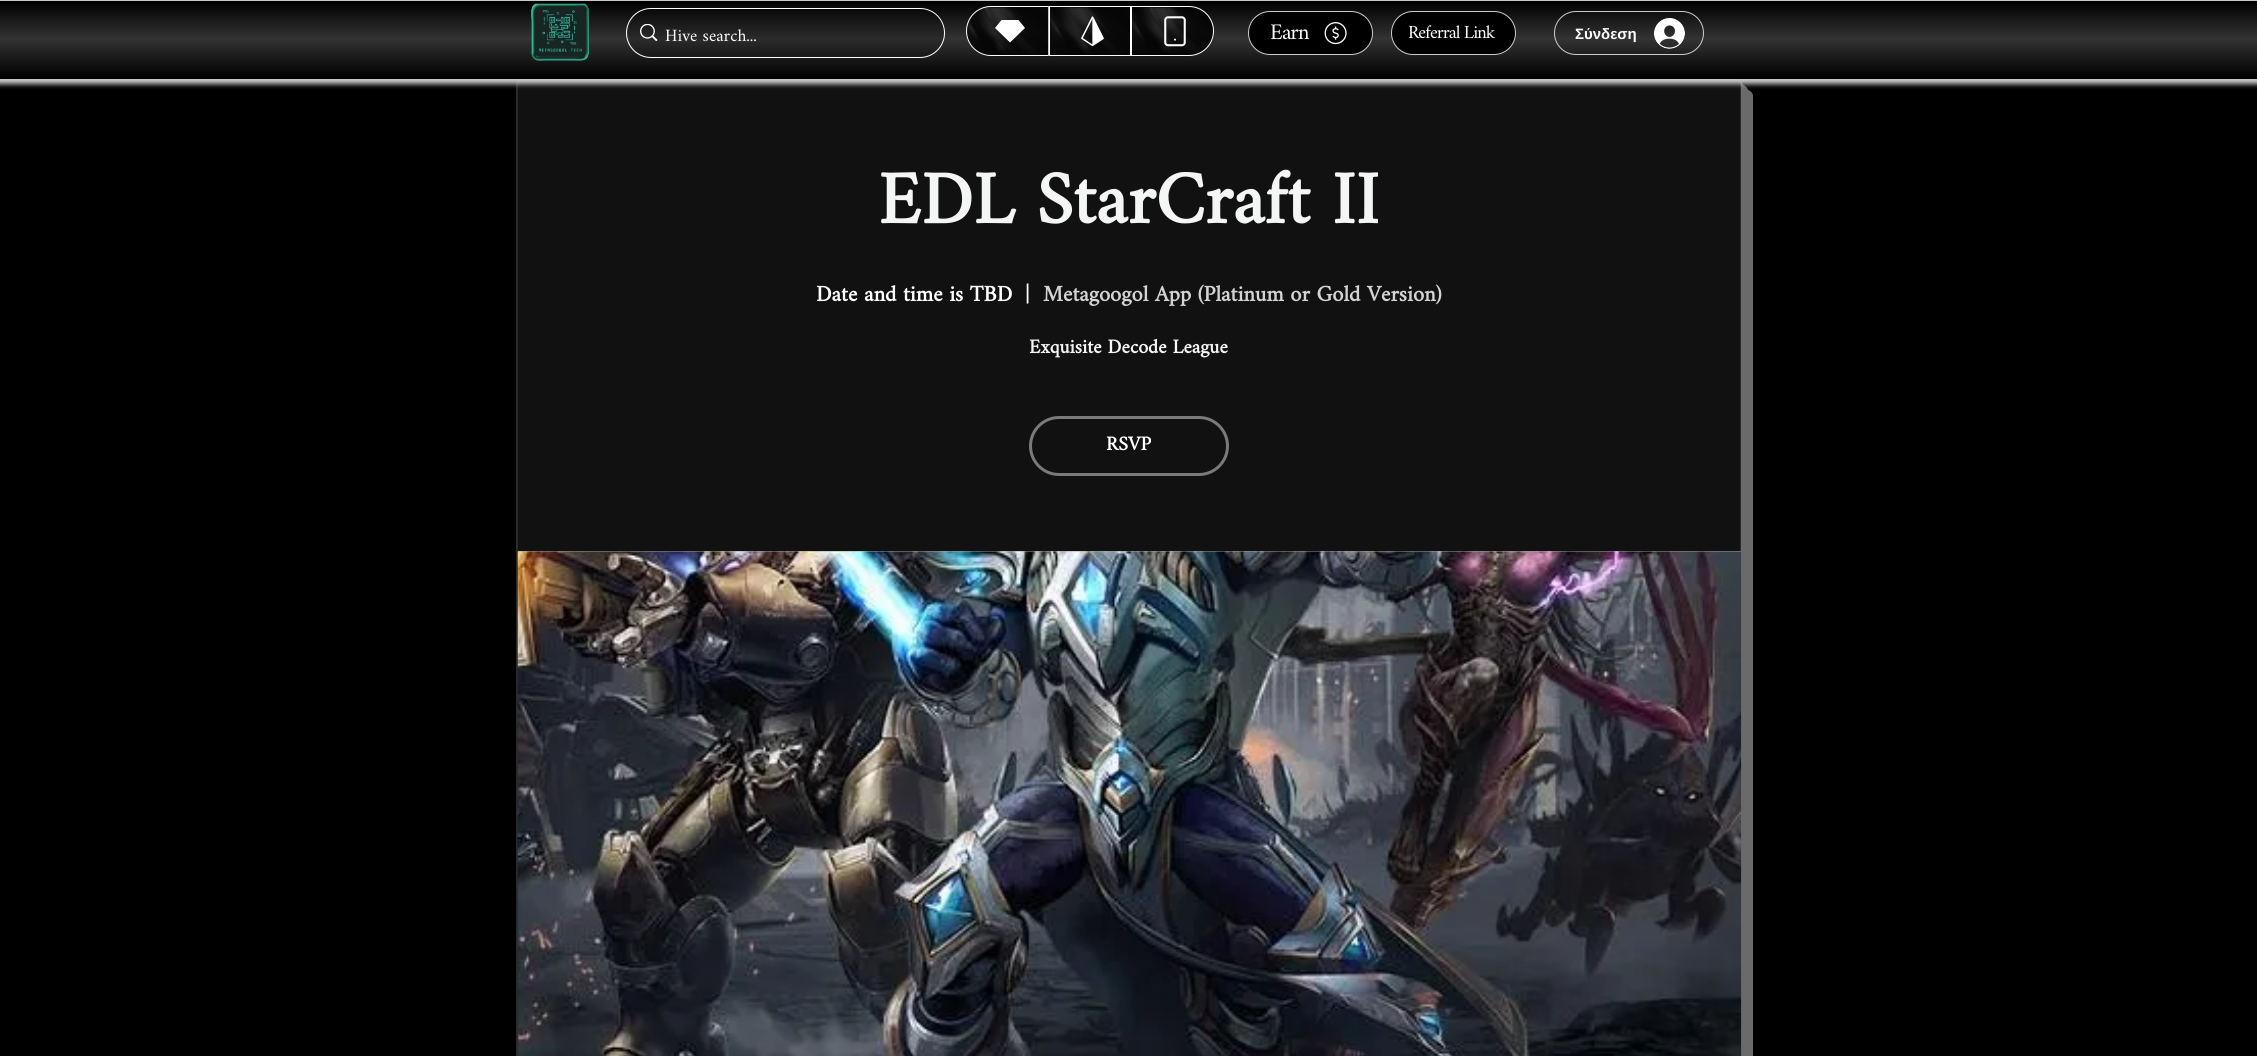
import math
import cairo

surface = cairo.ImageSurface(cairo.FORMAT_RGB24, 2257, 1056)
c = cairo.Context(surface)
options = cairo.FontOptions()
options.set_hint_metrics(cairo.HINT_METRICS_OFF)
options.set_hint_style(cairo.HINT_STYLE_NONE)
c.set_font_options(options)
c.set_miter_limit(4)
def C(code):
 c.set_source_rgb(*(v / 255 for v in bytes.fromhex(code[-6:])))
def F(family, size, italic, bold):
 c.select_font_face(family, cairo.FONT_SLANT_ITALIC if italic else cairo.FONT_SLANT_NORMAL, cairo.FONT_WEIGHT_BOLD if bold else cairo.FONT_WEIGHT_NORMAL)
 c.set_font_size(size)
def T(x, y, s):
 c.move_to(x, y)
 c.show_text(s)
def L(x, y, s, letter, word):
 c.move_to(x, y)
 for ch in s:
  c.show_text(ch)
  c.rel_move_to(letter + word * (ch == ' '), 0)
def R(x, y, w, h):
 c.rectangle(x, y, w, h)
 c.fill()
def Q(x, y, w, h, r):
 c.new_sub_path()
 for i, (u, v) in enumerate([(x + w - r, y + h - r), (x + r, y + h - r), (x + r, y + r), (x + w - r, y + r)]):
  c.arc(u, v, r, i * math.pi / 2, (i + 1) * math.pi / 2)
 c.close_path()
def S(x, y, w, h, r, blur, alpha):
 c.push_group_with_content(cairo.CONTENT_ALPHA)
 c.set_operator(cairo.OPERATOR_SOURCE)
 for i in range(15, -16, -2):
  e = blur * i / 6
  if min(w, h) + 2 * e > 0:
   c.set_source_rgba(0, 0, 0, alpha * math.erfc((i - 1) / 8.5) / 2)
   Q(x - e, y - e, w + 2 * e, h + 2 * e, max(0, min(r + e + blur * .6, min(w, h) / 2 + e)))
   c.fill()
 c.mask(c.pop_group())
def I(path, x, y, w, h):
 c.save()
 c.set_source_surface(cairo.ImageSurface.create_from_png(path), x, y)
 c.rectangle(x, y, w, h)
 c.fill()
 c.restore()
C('000000')
c.paint()
C('6a6a6a')
c.new_path()
c.move_to(528,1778)
c.line_to(528,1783)
c.curve_to(528,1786,531,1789,534,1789)
c.line_to(1747,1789)
c.curve_to(1750,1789,1753,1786,1753,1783)
c.line_to(1753,96)
c.curve_to(1753,93,1750,90,1747,90)
c.line_to(1741,90)
c.line_to(1741,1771)
c.curve_to(1741,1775,1738,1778,1735,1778)
c.close_path()
c.fill()
c.new_path()
c.move_to(525,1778)
c.line_to(525,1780)
c.curve_to(525,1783,528,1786,531,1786)
c.line_to(1744,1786)
c.curve_to(1747,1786,1750,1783,1750,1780)
c.line_to(1750,94)
c.curve_to(1750,91,1747,88,1744,88)
c.line_to(1741,88)
c.line_to(1741,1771)
c.curve_to(1741,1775,1738,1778,1735,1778)
c.close_path()
c.fill()
c.new_path()
c.move_to(523,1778)
c.curve_to(523,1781,526,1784,529,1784)
c.line_to(1742,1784)
c.curve_to(1745,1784,1748,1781,1748,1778)
c.line_to(1748,91)
c.curve_to(1748,88,1745,85,1742,85)
c.line_to(1741,85)
c.line_to(1741,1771)
c.curve_to(1741,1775,1738,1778,1735,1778)
c.close_path()
c.fill()
c.new_path()
c.move_to(520,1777)
c.curve_to(521,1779,523,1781,526,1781)
c.line_to(1739,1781)
c.curve_to(1742,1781,1745,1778,1745,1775)
c.line_to(1745,89)
c.curve_to(1745,86,1743,84,1741,83)
c.line_to(1741,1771)
c.curve_to(1741,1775,1738,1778,1735,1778)
c.line_to(522,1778)
c.close_path()
c.fill()
c.new_path()
c.move_to(519,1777)
c.curve_to(520,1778,522,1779,524,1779)
c.line_to(1737,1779)
c.curve_to(1740,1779,1743,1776,1743,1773)
c.line_to(1743,86)
c.curve_to(1743,83,1741,81,1739,80)
c.curve_to(1740,82,1741,83,1741,85)
c.line_to(1741,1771)
c.curve_to(1741,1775,1738,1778,1735,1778)
c.line_to(522,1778)
c.close_path()
c.fill()
C('2a2a2a')
Q(516,79,1225,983,6)
c.fill()
C('111111')
Q(518,80,1222,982,6)
c.fill()
C('cccccc')
S(-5,-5,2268,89,0,2.5,1)
C('000000')
R(0,78,2257,1)
gradient = cairo.LinearGradient(1129,78,1129,1.2)
gradient.add_color_stop_rgba(0,0,0,0,1)
gradient.add_color_stop_rgba(.51,0.2,0.2,0.2,1)
gradient.add_color_stop_rgba(1,0,0,0,1)
c.set_source(gradient)
R(0,1,2257,77)
I('1.png',531,3,58,58)
Q(626.5,8.5,318,49,24.5)
C('ffffff')
c.set_line_width(1)
c.stroke()
c.set_source_rgba(0,0,0,0.15)
Q(628,9,316,47,23.5)
c.fill()
I('2.png',640,24,18,17)
F('Amiri',17.5,0,0)
C('fffffe')
T(665,41,'Hive search...')
I('3.png',966,6,83,51)
c.new_path()
c.move_to(991,6.5)
c.line_to(1048.5,6.5)
c.line_to(1048.5,55.5)
c.line_to(991,55.5)
c.curve_to(977.5,55.5,966.5,44.5,966.5,31)
c.curve_to(966.5,17.5,977.5,6.5,991,6.5)
c.close_path()
c.stroke()
C('ffffff')
c.new_path()
c.move_to(1018.5,20)
c.line_to(1001.5,20)
c.line_to(995,28)
c.line_to(1010,42.5)
c.line_to(1025,28)
c.close_path()
c.fill()
I('4.png',1048,6,84,51)
c.rectangle(1049.5,6.5,81,49)
C('fffffe')
c.stroke()
I('5.png',1081,16,23,31)
I('6.png',1131,6,83,51)
c.new_path()
c.move_to(1131.5,6.5)
c.line_to(1189,6.5)
c.curve_to(1202.5,6.5,1213.5,17.5,1213.5,31)
c.curve_to(1213.5,44.5,1202.5,55.5,1189,55.5)
c.line_to(1131.5,55.5)
c.close_path()
C('ffffff')
c.stroke()
I('7.png',1164,16,22,31)
C('000000')
Q(1248.5,11.5,124,43,21.5)
c.fill_preserve()
C('cccccc')
c.stroke()
F('Amiri',22.5,0,0)
C('fffffe')
L(1270,39,'Earn',-1,0)
I('8.png',1324,22,23,23)
C('000000')
Q(1391.5,11.5,124,43,21.5)
c.fill_preserve()
C('cccccc')
c.stroke()
F('Amiri',18.75,0,0)
C('fffffe')
L(1408,38,'Referral Link',-1,0)
Q(1554.5,11.5,149,43,21.5)
C('cccccc')
c.stroke()
F('Liberation Sans',15,0,1)
C('fffffe')
T(1575,39,'Σύνδεση')
I('9.png',1654,18,31,31)
F('Amiri',75,0,1)
C('f3f6f4')
T(878,223,'EDL StarCraft II')
F('Amiri',22.5,0,1)
C('fffffe')
T(816,301,'Date and time is TBD')
T(1025,301,'|')
C('d3d3d3')
T(1043,301,'Metagoogol App (Platinum or Gold Version)')
F('Amiri',20,0,1)
C('f3f6f4')
T(1029,353,'Exquisite Decode League')
Q(1030.5,417.5,197,57,28.5)
C('797a7a')
c.set_line_width(3)
c.stroke()
C('fffffe')
T(1106,450,'RSVP')
C('a6a6a6')
R(518,551,1223,1)
I('10.png',517,551,1225,505)
surface.write_to_png('o.png')
